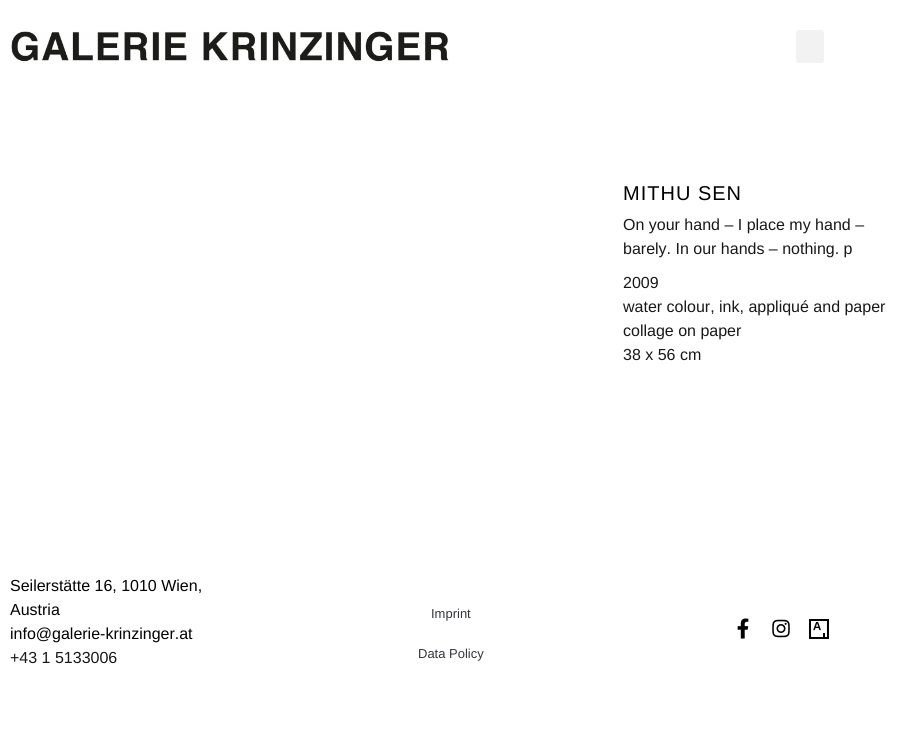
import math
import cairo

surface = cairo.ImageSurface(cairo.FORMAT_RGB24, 901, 744)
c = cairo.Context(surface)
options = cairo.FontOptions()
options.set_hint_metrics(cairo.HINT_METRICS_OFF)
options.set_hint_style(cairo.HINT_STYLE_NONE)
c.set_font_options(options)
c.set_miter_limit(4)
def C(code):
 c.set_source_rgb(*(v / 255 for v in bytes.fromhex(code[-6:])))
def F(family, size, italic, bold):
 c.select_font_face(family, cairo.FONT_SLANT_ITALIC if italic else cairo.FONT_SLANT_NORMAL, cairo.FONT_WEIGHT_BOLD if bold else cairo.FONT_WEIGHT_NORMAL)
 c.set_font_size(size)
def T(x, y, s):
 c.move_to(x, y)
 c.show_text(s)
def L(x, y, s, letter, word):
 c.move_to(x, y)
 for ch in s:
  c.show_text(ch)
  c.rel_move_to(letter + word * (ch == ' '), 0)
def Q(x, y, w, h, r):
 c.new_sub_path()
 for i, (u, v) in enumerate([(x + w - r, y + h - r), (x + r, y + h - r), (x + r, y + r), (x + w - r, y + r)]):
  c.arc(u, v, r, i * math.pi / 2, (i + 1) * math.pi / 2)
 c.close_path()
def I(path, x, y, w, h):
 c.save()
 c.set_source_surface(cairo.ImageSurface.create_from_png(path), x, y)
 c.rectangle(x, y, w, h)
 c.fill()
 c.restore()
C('ffffff')
c.paint()
I('1.png',10,31,439,31)
C('f2f2f2')
Q(796,30,28,33,3)
c.fill()
F('Liberation Sans',20,0,0)
C('000000')
L(623,200,'MITHU SEN',1,0)
F('Liberation Sans',16,0,0)
C('181818')
T(623,230,'On your hand – I place my hand –')
T(623,254,'barely. In our hands – nothing. p')
T(623,288,'2009')
T(623,312,'water colour, ink, appliqué and paper')
T(623,336,'collage on paper')
T(623,360,'38 x 56 cm')
C('000000')
T(10,591,'Seilerstätte 16, 1010 Wien,')
T(10,615,'Austria')
T(10,639,'info@galerie-krinzinger.at')
C('181818')
T(10,663,'+43 1 5133006')
F('Liberation Sans',13,0,0)
C('33373d')
T(431,618,'Imprint')
T(418,658,'Data Policy')
I('2.png',737,618,12,21)
I('3.png',772,619,18,19)
I('4.png',809,619,20,20)
surface.write_to_png('o.png')
